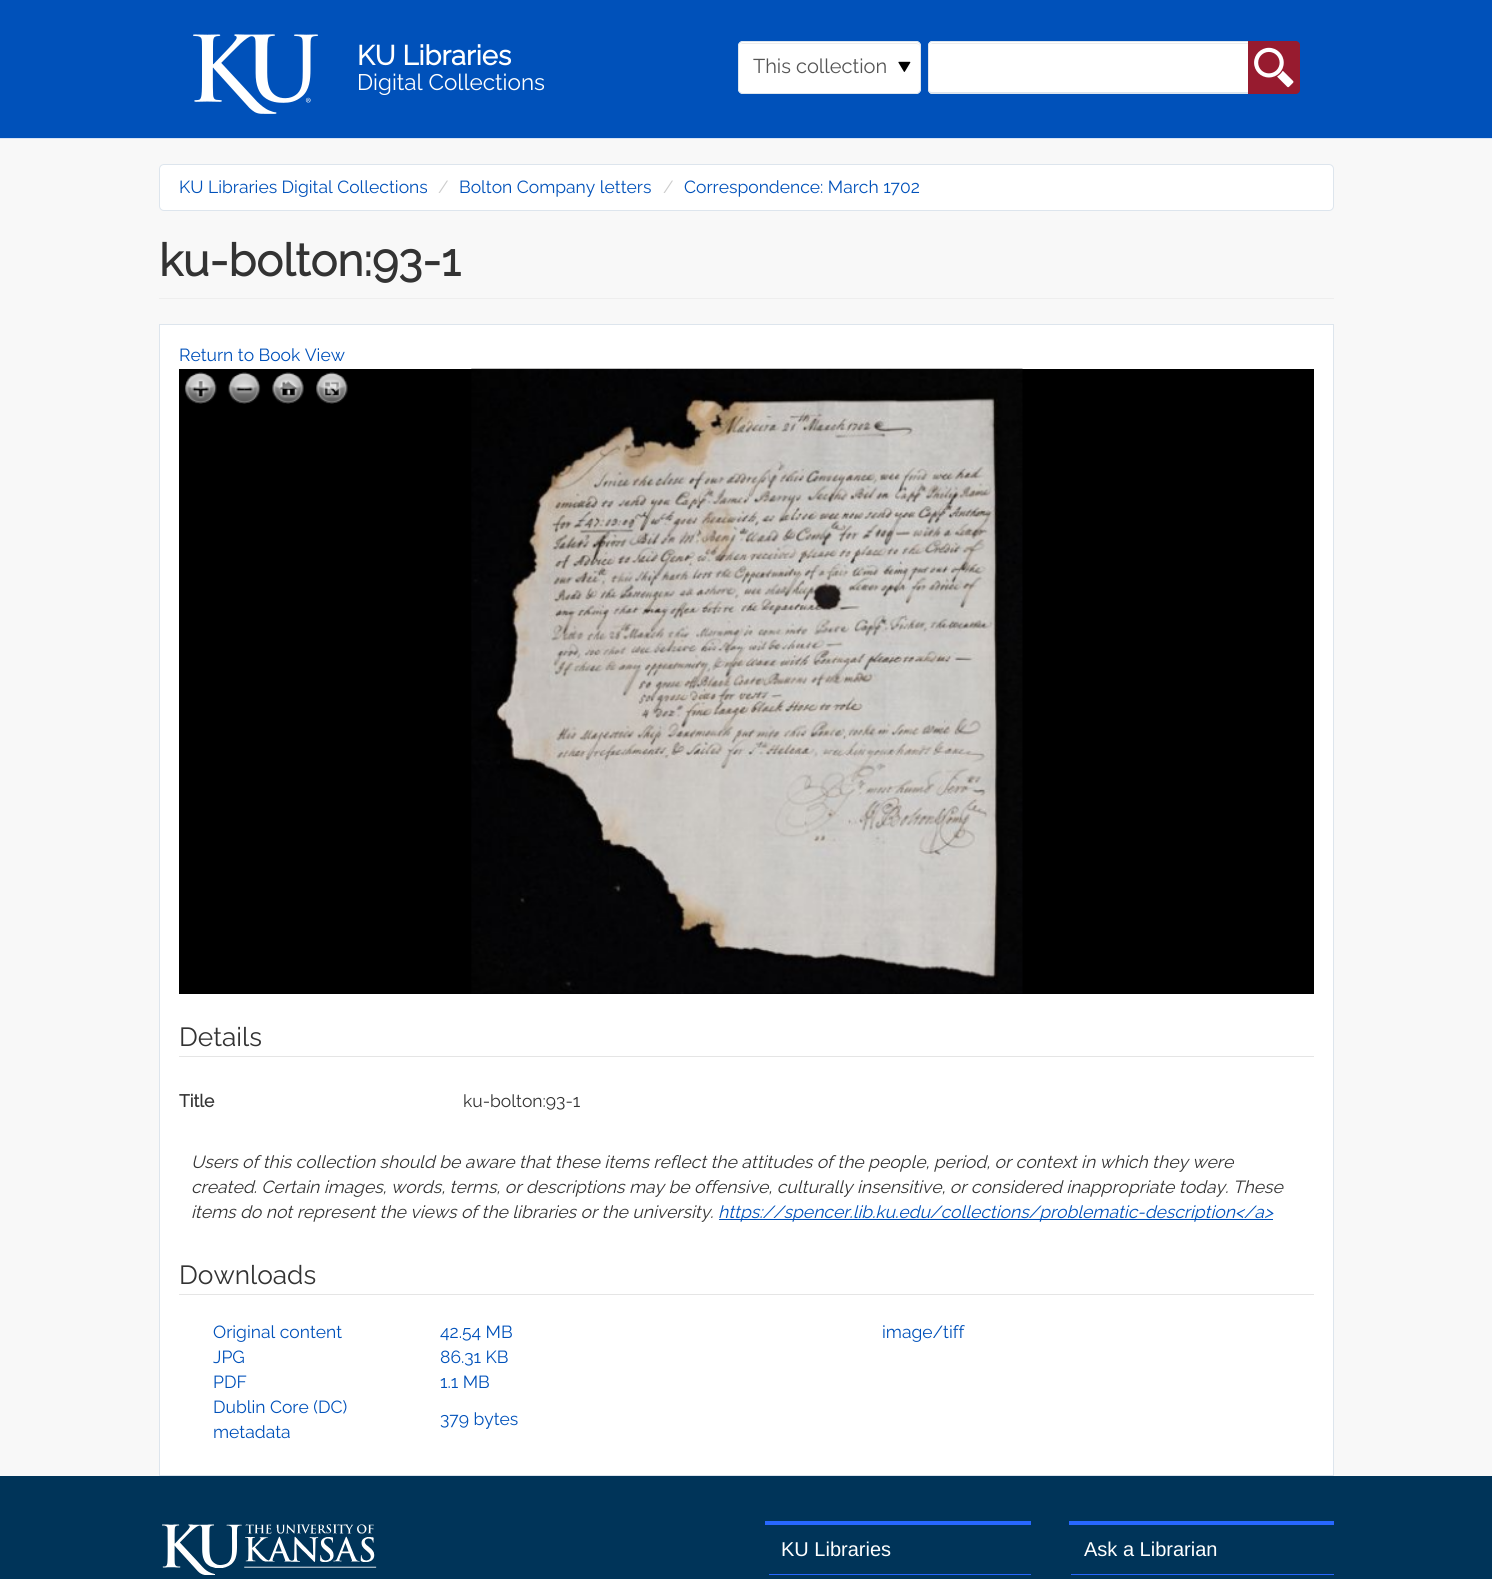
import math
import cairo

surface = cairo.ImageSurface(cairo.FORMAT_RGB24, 1492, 1579)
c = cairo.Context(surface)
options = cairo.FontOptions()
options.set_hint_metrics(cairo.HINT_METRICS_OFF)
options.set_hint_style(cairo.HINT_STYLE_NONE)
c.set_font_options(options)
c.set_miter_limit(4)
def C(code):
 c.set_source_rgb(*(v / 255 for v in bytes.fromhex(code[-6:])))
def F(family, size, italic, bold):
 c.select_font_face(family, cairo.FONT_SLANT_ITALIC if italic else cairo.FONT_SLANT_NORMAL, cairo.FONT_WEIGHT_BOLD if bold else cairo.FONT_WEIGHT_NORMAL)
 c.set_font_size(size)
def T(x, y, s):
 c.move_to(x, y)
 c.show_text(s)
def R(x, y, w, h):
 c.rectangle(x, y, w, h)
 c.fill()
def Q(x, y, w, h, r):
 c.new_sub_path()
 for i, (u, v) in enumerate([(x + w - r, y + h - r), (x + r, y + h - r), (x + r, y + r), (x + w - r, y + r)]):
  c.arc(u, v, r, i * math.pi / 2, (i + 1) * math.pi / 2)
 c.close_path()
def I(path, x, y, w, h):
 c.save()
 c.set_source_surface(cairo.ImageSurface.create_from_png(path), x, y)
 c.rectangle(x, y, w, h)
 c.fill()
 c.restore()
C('f8f8f8')
c.paint()
C('0051ba')
R(0,0,1492,138)
C('d7e3f6')
R(0,138,1492,1)
I('1.png',193,34,126,80)
F('Raleway',27.5,0,1)
C('ffffff')
T(357,65,'KU Libraries')
F('Raleway Thin',22.5,0,0)
T(357,90,'Digital Collections')
Q(738,41,183,53,5)
c.fill()
I('2.png',898,61,13,11)
C('ececec')
c.new_path()
c.move_to(742,44)
c.line_to(916,44)
c.curve_to(918,44,920,45,920,48)
c.line_to(920,47)
c.curve_to(920,45,918,43,916,43)
c.line_to(743,43)
c.curve_to(741,43,739,45,739,47)
c.line_to(739,48)
c.curve_to(739,45,740,44,742,44)
c.close_path()
c.fill()
Q(738.5,41.5,182,52,4.5)
C('dde5ed')
c.set_line_width(1)
c.stroke()
F('Raleway Thin',20,0,0)
C('555555')
T(753,73,'This collection')
C('ffffff')
c.new_path()
c.move_to(933,41)
c.line_to(1248,41)
c.line_to(1248,94)
c.line_to(933,94)
c.curve_to(930,94,928,92,928,89)
c.line_to(928,46)
c.curve_to(928,43,930,41,933,41)
c.close_path()
c.fill()
C('ececec')
c.new_path()
c.move_to(932,44)
c.line_to(1248,44)
c.line_to(1248,43)
c.line_to(933,43)
c.curve_to(931,43,929,45,929,47)
c.line_to(929,48)
c.curve_to(929,45,930,44,932,44)
c.close_path()
c.fill()
C('dde5ed')
c.set_fill_rule(cairo.FILL_RULE_EVEN_ODD)
c.new_path()
c.move_to(932,41)
c.line_to(1248,41)
c.line_to(1248,94)
c.line_to(932,94)
c.curve_to(930,94,928,92,928,89)
c.line_to(928,46)
c.curve_to(928,43,930,41,932,41)
c.close_path()
c.move_to(932,42)
c.line_to(1248,42)
c.line_to(1248,92)
c.line_to(932,92)
c.curve_to(930,92,929,91,929,89)
c.line_to(929,46)
c.curve_to(929,44,930,42,932,42)
c.close_path()
c.fill()
C('971b2f')
c.new_path()
c.move_to(1248,41)
c.line_to(1295,41)
c.curve_to(1298,41,1300,43,1300,46)
c.line_to(1300,89)
c.curve_to(1300,92,1298,94,1295,94)
c.line_to(1248,94)
c.close_path()
c.fill()
I('3.png',1254,47,40,41)
c.new_path()
c.move_to(1248.5,41.5)
c.line_to(1295,41.5)
c.curve_to(1297.5,41.5,1299.5,43.5,1299.5,46)
c.line_to(1299.5,89)
c.curve_to(1299.5,91.5,1297.5,93.5,1295,93.5)
c.line_to(1248.5,93.5)
c.close_path()
c.stroke()
C('ffffff')
Q(159.5,164.5,1174,46,4.5)
c.fill_preserve()
C('dde5ed')
c.stroke()
F('Raleway Thin',17.5,0,0)
C('0051ba')
T(179,193,'KU Libraries Digital Collections')
C('cccccc')
T(438,193,'/')
C('0051ba')
T(459,193,'Bolton Company letters')
C('cccccc')
T(663,193,'/')
C('0051ba')
T(684,193,'Correspondence: March 1702')
C('eeeeee')
R(159,298,1175,1)
F('Raleway',45,0,1)
C('333333')
T(159,276,'ku-bolton:93-1')
C('ffffff')
c.rectangle(159.5,324.5,1174,1151)
c.fill_preserve()
C('dde5ed')
c.stroke()
F('Raleway Thin',17.5,0,0)
C('0051ba')
T(179,361,'Return to Book View')
C('000000')
R(179,369,1135,625)
I('4.png',471,368,552,626)
I('5.png',184,372,33,32)
I('6.png',185,372,32,32)
I('7.png',228,372,33,32)
I('8.png',228,372,32,32)
I('9.png',272,372,32,32)
I('10.png',272,372,32,32)
I('11.png',316,372,32,32)
I('12.png',316,372,32,32)
C('e5e5e5')
R(179,1056,1135,1)
F('Raleway Thin',26.25,0,0)
C('333333')
T(179,1046,'Details')
F('Raleway',17.5,0,1)
T(179,1107,'Title')
F('Raleway Thin',17.5,0,0)
T(463,1107,'ku-bolton:93-1')
F('Raleway Thin',17.5,1,0)
T(191,1168,'Users of this collection should be aware that these items reflect the attitudes of the people, period, or context in which they were')
T(191,1193,'created. Certain images, words, terms, or descriptions may be offensive, culturally insensitive, or considered inappropriate today. These')
T(191,1218,'items do not represent the views of the libraries or the university.')
C('0051ba')
R(719,1219,554,1)
T(718,1218,'https://spencer.lib.ku.edu/collections/problematic-description</a>')
C('e5e5e5')
R(179,1294,1135,1)
F('Raleway Thin',26.25,0,0)
C('333333')
T(179,1284,'Downloads')
F('Raleway Thin',17.5,0,0)
C('0051ba')
T(213,1338,'Original content')
T(440,1338,'42.54 MB')
T(882,1338,'image/tiff')
T(213,1363,'JPG')
T(440,1363,'86.31 KB')
T(213,1388,'PDF')
T(440,1388,'1.1 MB')
T(213,1413,'Dublin Core (DC)')
T(213,1438,'metadata')
T(440,1425,'379 bytes')
C('003459')
R(0,1476,1492,103)
I('13.png',162,1524,215,51)
C('2767ff')
R(765,1521,266,4)
R(769,1574,262,1)
F('Liberation Sans',20,0,0)
C('ffffff')
T(781,1556,'KU Libraries')
C('2767ff')
R(1069,1521,265,4)
R(1071,1574,263,1)
C('ffffff')
T(1084,1556,'Ask a Librarian')
surface.write_to_png('o.png')
